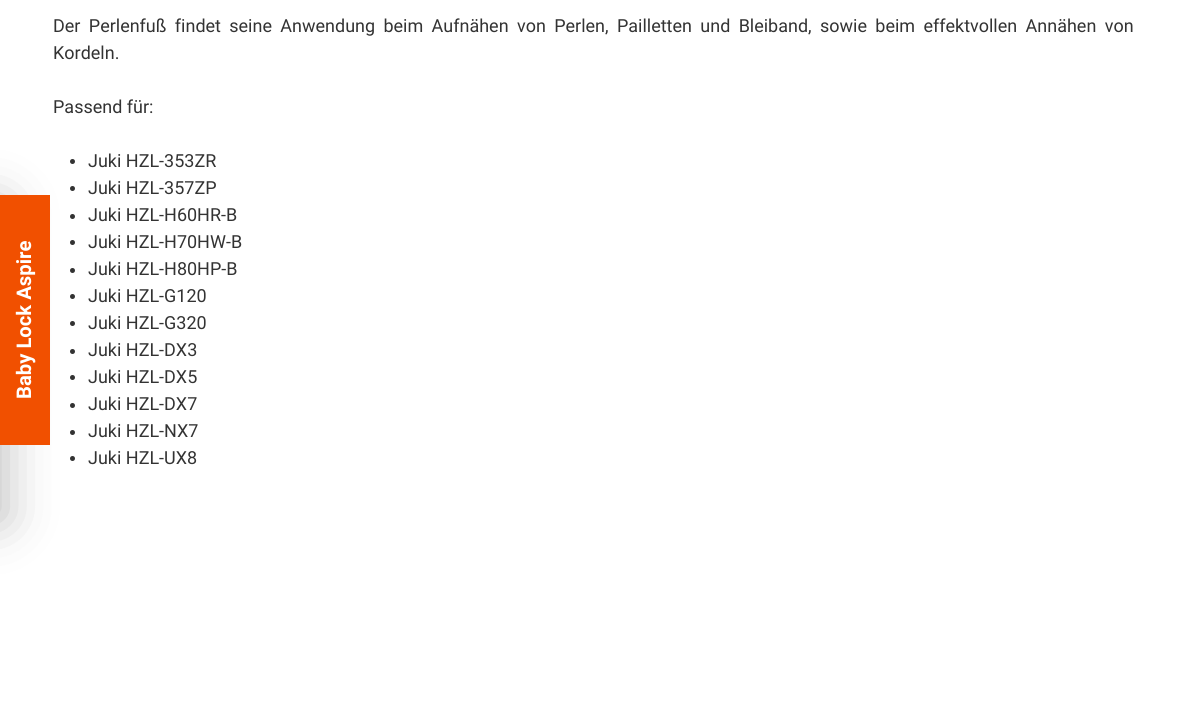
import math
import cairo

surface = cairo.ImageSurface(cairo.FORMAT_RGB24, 1185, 708)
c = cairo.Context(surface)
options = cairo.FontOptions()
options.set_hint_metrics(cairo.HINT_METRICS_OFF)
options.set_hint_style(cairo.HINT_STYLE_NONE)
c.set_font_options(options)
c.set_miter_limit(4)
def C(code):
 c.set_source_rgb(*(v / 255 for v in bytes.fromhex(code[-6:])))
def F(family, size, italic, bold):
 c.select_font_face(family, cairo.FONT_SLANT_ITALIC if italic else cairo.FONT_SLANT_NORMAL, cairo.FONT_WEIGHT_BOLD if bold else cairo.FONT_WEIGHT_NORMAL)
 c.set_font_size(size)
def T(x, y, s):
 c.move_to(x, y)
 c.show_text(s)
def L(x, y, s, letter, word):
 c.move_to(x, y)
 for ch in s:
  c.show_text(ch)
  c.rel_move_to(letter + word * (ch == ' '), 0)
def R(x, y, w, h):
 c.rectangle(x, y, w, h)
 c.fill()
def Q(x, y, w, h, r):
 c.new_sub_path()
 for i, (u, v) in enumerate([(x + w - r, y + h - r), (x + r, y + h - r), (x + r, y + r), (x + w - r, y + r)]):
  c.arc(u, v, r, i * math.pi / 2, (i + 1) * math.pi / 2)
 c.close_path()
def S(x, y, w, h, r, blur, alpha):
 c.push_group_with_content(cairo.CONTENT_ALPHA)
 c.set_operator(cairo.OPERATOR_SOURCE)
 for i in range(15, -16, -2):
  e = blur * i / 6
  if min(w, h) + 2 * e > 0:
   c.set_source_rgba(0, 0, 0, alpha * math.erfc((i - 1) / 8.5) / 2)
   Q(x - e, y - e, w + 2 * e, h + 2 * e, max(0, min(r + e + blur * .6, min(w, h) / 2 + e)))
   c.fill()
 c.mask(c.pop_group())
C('ffffff')
c.paint()
C('333333')
c.arc(72.5,161.5,2.5,0,2 * math.pi)
c.fill()
c.arc(72.5,188.5,2.5,0,2 * math.pi)
c.fill()
c.arc(72.5,216.5,2.5,0,2 * math.pi)
c.fill()
c.arc(72.5,242.5,2.5,0,2 * math.pi)
c.fill()
c.arc(72.5,270.5,2.5,0,2 * math.pi)
c.fill()
c.arc(72.5,296.5,2.5,0,2 * math.pi)
c.fill()
c.arc(72.5,323.5,2.5,0,2 * math.pi)
c.fill()
c.arc(72.5,351.5,2.5,0,2 * math.pi)
c.fill()
c.arc(72.5,377.5,2.5,0,2 * math.pi)
c.fill()
c.arc(72.5,405.5,2.5,0,2 * math.pi)
c.fill()
c.arc(72.5,432.5,2.5,0,2 * math.pi)
c.fill()
c.arc(72.5,458.5,2.5,0,2 * math.pi)
c.fill()
C('000000')
S(-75,203,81,318,0,25,.25)
C('f15000')
R(0,195,50,250)
F('Roboto',20.25,0,1)
C('ffffff')
c.save()
c.translate(31,399)
c.rotate(-90 * math.pi / 180)
T(0,0,'Baby Lock Aspire')
c.restore()
F('Roboto',18,0,0)
C('333333')
L(53,32,'Der Perlenfuß findet seine Anwendung beim Aufnähen von Perlen, Pailletten und Bleiband, sowie beim effektvollen Annähen von',0,3.9)
T(53,59,'Kordeln.')
T(53,113,'Passend für:')
T(88,167,'Juki HZL-353ZR')
T(88,194,'Juki HZL-357ZP')
T(88,221,'Juki HZL-H60HR-B')
T(88,248,'Juki HZL-H70HW-B')
T(88,275,'Juki HZL-H80HP-B')
T(88,302,'Juki HZL-G120')
T(88,329,'Juki HZL-G320')
T(88,356,'Juki HZL-DX3')
T(88,383,'Juki HZL-DX5')
T(88,410,'Juki HZL-DX7')
T(88,437,'Juki HZL-NX7')
T(88,464,'Juki HZL-UX8')
surface.write_to_png('o.png')
